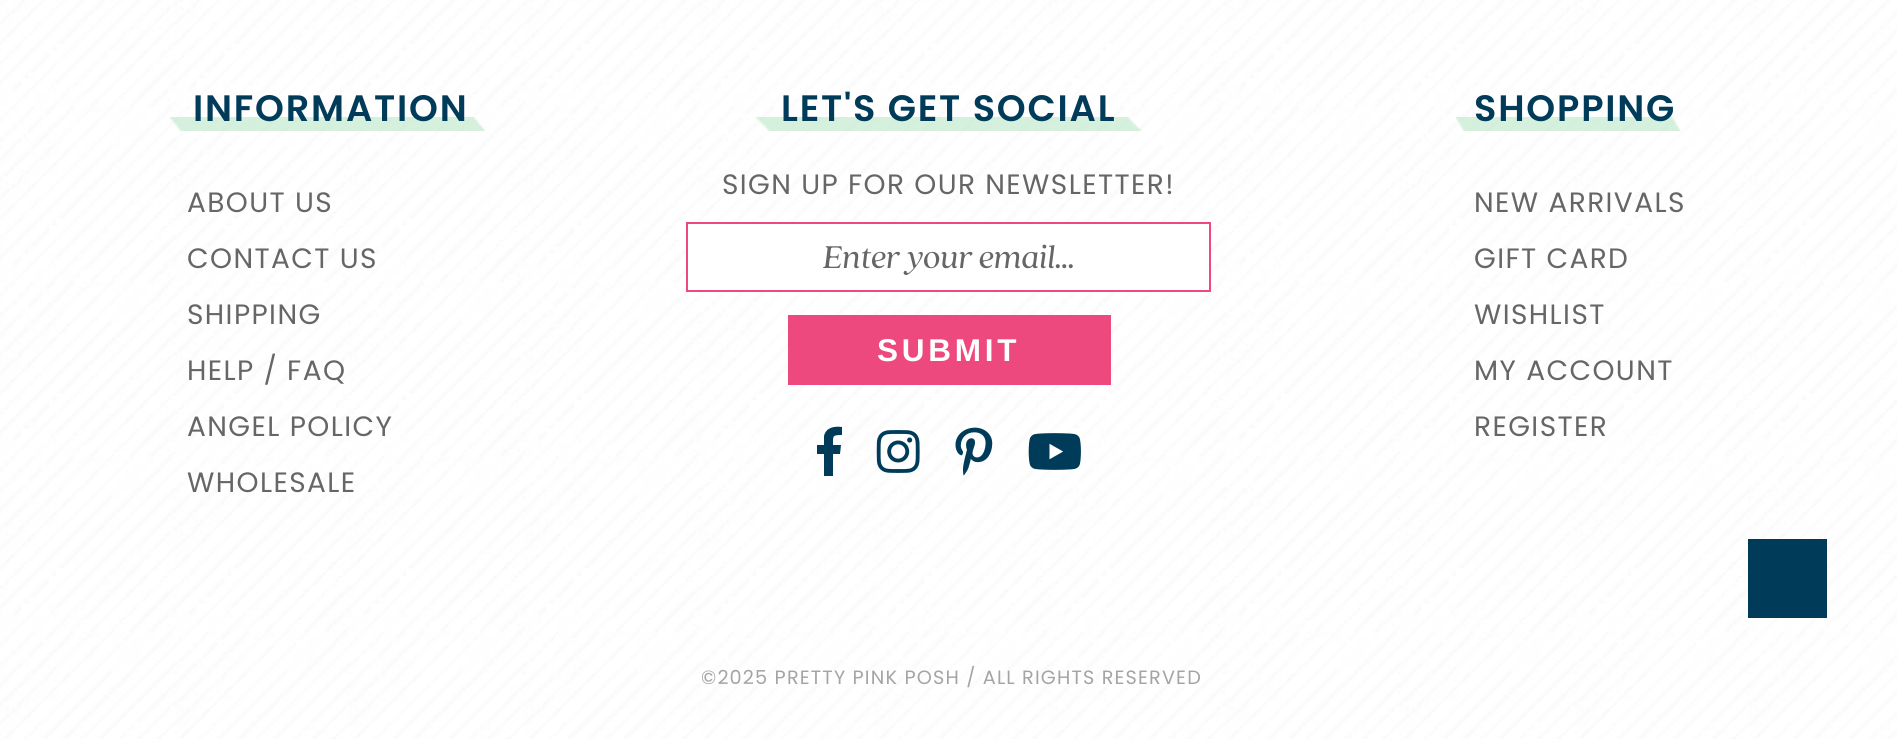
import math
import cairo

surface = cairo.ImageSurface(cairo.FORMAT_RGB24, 1897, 739)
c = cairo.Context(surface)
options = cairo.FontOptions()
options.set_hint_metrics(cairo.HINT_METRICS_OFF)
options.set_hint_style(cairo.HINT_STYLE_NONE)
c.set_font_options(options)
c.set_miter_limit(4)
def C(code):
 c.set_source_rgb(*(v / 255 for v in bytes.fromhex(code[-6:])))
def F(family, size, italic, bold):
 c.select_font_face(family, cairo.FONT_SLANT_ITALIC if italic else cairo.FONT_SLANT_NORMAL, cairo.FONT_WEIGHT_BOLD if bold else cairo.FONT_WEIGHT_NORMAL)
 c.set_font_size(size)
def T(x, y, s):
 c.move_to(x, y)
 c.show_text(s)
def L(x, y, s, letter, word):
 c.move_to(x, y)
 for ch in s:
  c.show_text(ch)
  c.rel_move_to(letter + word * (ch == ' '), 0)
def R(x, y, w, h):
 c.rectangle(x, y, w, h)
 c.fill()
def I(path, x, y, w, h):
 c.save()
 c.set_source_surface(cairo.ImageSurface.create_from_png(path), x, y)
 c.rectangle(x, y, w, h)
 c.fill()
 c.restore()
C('ffffff')
c.paint()
I('1.png',0,0,1897,739)
I('2.png',169,117,316,14)
F('Poppins SemiBold',36.75,0,0)
C('003c5a')
L(193,121,'INFORMATION',1.8,0)
F('Poppins',28,0,0)
C('666666')
L(187,212,'ABOUT US',1.4,0)
L(187,268,'CONTACT US',1.4,0)
L(187,324,'SHIPPING',1.4,0)
L(187,380,'HELP / FAQ',1.4,0)
L(187,436,'ANGEL POLICY',1.4,0)
L(187,492,'WHOLESALE',1.4,0)
I('3.png',756,117,385,14)
F('Poppins SemiBold',36.75,0,0)
C('003c5a')
L(781,121,'LET\'S GET SOCIAL',1.8,0)
F('Poppins',28,0,0)
C('666666')
L(722,194,'SIGN UP FOR OUR NEWSLETTER!',1.4,0)
C('ffffff')
c.rectangle(687,223,523,68)
c.fill_preserve()
C('ed497e')
c.stroke()
F('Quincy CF',35,1,0)
C('666666')
T(823,268,'Enter your email...')
C('ed497e')
R(788,315,323,70)
F('Liberation Sans',31.5,0,1)
C('ffffff')
L(877,361,'SUBMIT',3.75,0)
C('003c5a')
c.new_path()
c.move_to(824,476)
c.line_to(824,454)
c.line_to(817,454)
c.line_to(817,445)
c.line_to(824,445)
c.line_to(824,436)
c.curve_to(826,427,835,426,842,427)
c.line_to(842,435)
c.curve_to(832,435,833,436,833,445)
c.line_to(841,445)
c.line_to(840,454)
c.line_to(833,454)
c.line_to(833,476)
c.fill()
I('4.png',876,430,44,43)
I('5.png',955,427,38,49)
I('6.png',1028,433,53,37)
I('7.png',1456,117,224,14)
F('Poppins SemiBold',36.75,0,0)
L(1474,121,'SHOPPING',1.8,0)
F('Poppins',28,0,0)
C('666666')
L(1474,212,'NEW ARRIVALS',1.4,0)
L(1474,268,'GIFT CARD',1.4,0)
L(1474,324,'WISHLIST',1.4,0)
L(1474,380,'MY ACCOUNT',1.4,0)
L(1474,436,'REGISTER',1.4,0)
F('Poppins',19.25,0,0)
C('a4a4a4')
L(701,684,'©2025 PRETTY PINK POSH / ALL RIGHTS RESERVED',1.15,0)
C('003c5a')
R(1748,539,79,79)
surface.write_to_png('o.png')
